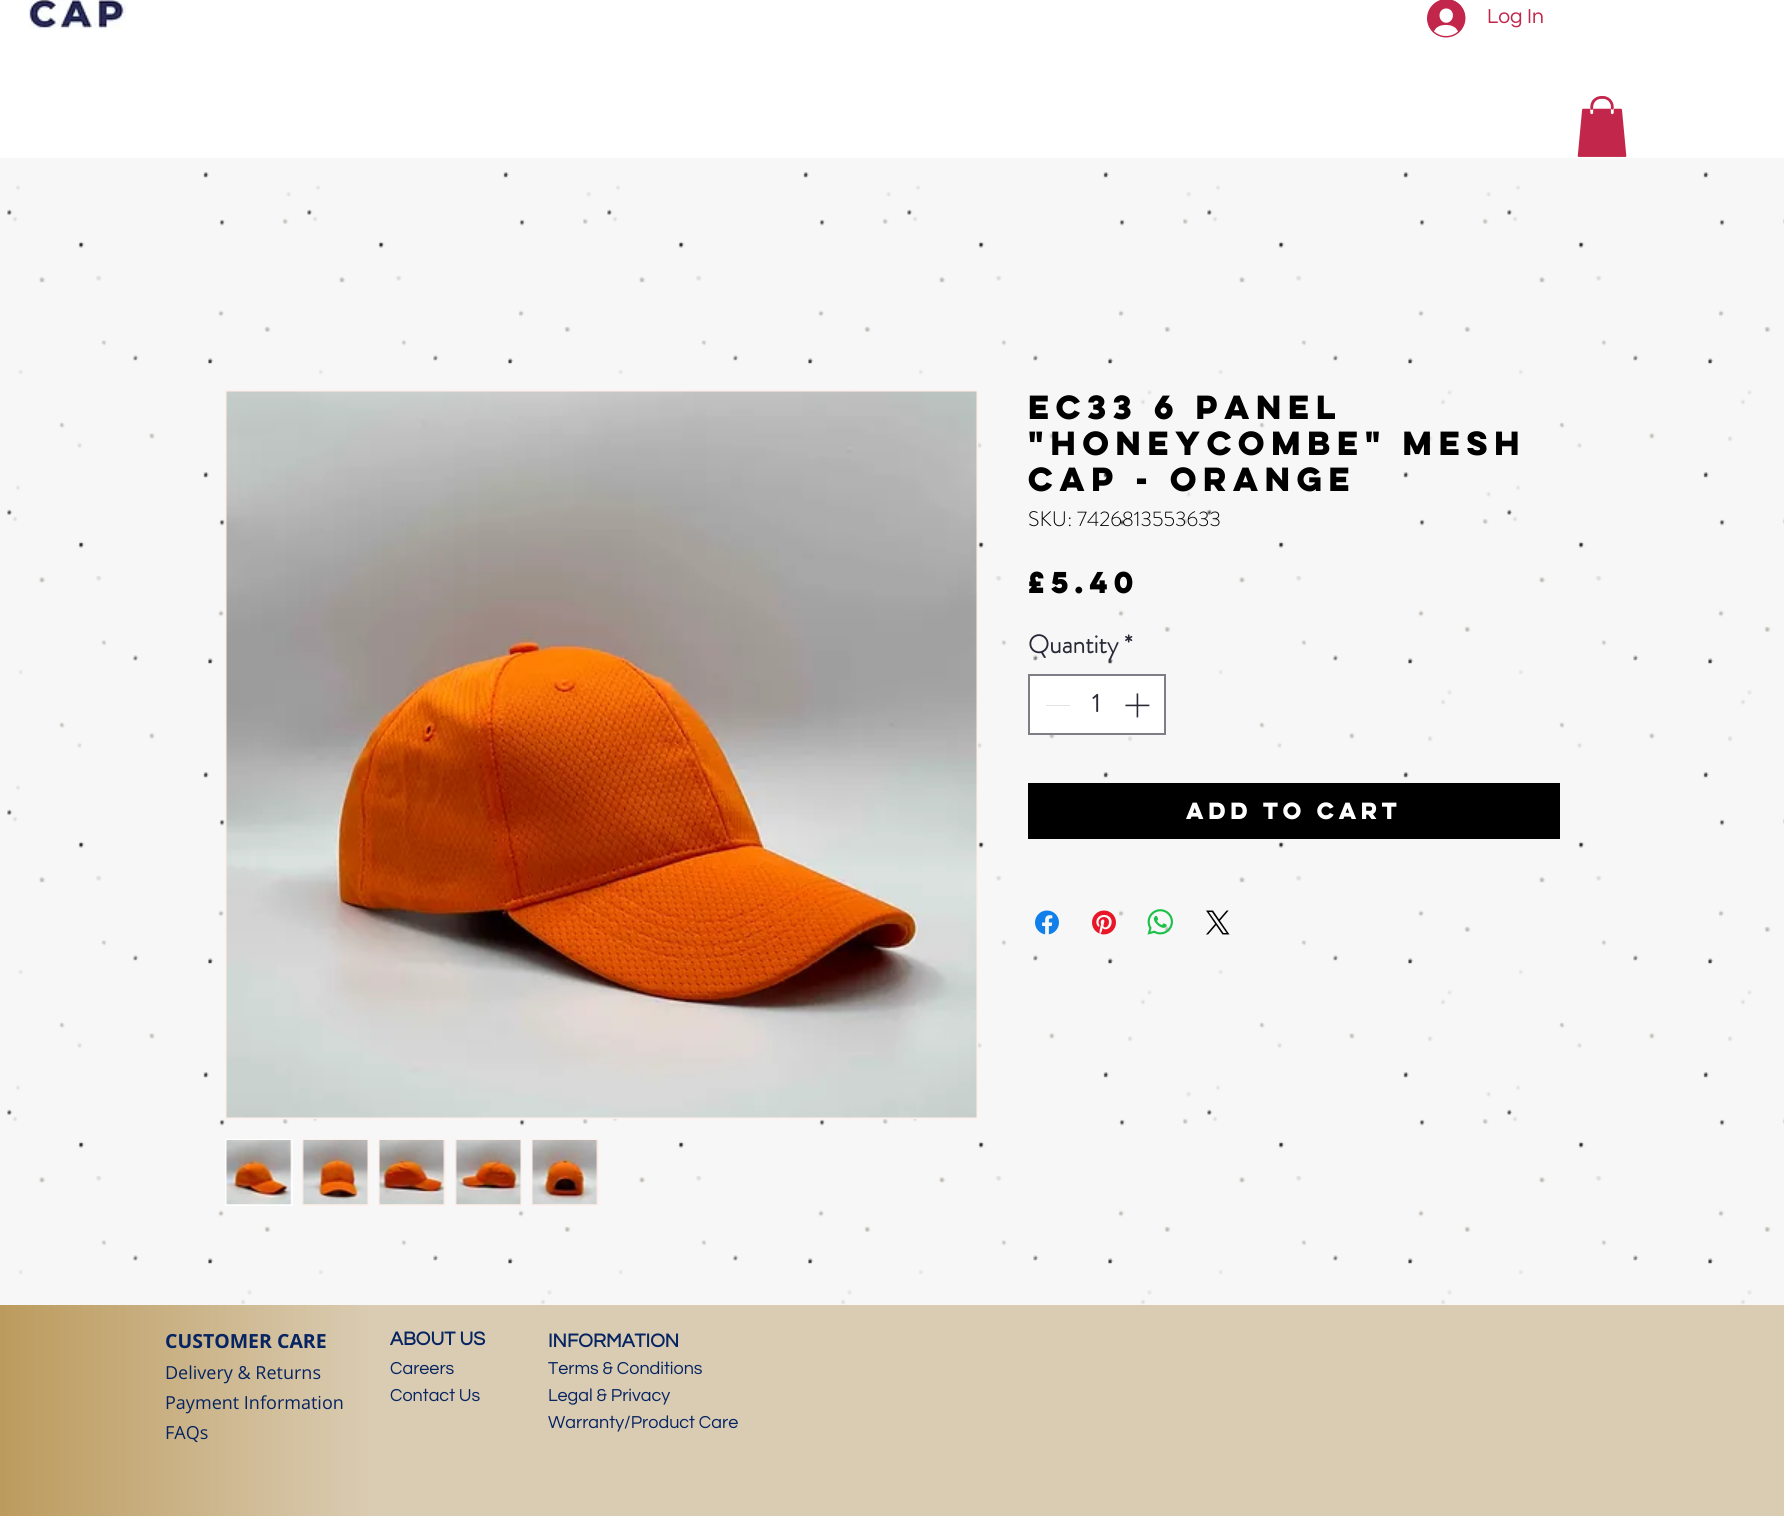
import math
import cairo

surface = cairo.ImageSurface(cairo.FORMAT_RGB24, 1784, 1516)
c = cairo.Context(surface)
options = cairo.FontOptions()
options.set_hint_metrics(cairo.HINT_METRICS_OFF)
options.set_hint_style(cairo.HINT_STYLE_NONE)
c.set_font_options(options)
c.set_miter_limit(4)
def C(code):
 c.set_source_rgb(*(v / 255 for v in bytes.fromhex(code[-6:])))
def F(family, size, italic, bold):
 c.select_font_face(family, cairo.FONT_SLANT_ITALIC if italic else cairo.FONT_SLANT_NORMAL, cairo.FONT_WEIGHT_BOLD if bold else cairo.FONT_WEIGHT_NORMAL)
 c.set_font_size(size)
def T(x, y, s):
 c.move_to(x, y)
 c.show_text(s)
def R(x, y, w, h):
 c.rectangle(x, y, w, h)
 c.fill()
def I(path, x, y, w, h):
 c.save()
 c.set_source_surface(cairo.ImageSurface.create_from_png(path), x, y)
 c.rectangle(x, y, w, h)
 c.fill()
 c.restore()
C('f7f7f7')
c.paint()
C('ffffff')
R(0,0,1784,158)
I('1.png',29,0,97,30)
I('2.png',1427,0,39,38)
F('Questrial',21,0,0)
C('c2274b')
T(1487,23,'Log In')
I('3.png',1577,96,50,61)
I('15.png',7,172,1777,1133)
c.rectangle(226,391,751,727)
C('fff0ec')
c.stroke()
I('4.png',226,391,751,727)
R(290,1141,1,63)
c.rectangle(226,1140,66,65)
C('ffffff')
c.stroke()
I('5.png',226,1140,66,65)
C('fff0ec')
R(302,1139,67,67)
I('6.png',302,1140,66,65)
R(378,1139,68,67)
I('7.png',379,1140,66,65)
R(455,1139,67,67)
I('8.png',455,1140,66,65)
R(531,1139,68,67)
I('9.png',532,1140,66,65)
F('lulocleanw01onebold',30,0,1)
C('000000')
T(1028,419,'EC33 6 Panel')
T(1028,455,'"Honeycombe" Mesh')
T(1028,491,'Cap - ORANGE')
F('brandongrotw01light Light',21,0,0)
T(1028,526,'SKU: 7426813553633')
F('lulocleanw01onebold',27,0,1)
T(1028,593,'£5.40')
F('brandongrotw01light',25.5,0,1)
C('282936')
T(1028,653,'Quantity')
T(1124,653,'*')
C('ffffff')
c.rectangle(1029,675,136,59)
c.fill_preserve()
C('7e7f86')
c.stroke()
C('e3e3e3')
R(1046,705,24,1)
C('282936')
T(1092,712,'1')
I('10.png',1125,693,25,25)
C('000000')
R(1028,783,532,56)
F('lulocleanw01onebold',21,0,1)
C('ffffff')
T(1186,819,'Add to Cart')
I('11.png',1035,910,24,25)
I('12.png',1092,910,24,25)
I('13.png',1147,909,26,26)
I('14.png',1206,910,24,25)
gradient = cairo.LinearGradient(0,1429,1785,1429)
gradient.add_color_stop_rgba(0,0.737,0.608,0.365,1)
gradient.add_color_stop_rgba(.21,0.855,0.8,0.702,1)
c.set_source(gradient)
R(0,1305,1784,211)
F('Open Sans',19.5,0,1)
C('062461')
T(165,1348,'CUSTOMER CARE')
F('Open Sans',18,0,0)
T(165,1379,'Delivery & Returns')
T(165,1409,'Payment Information')
T(165,1439,'FAQs')
F('Questrial',19.5,0,1)
T(390,1345,'ABOUT US')
F('Questrial',18,0,0)
T(390,1374,'Careers')
T(390,1401,'Contact Us')
F('Questrial',19.5,0,1)
T(548,1347,'INFORMATION')
F('Questrial',18,0,0)
T(548,1374,'Terms & Conditions')
T(548,1401,'Legal & Privacy')
T(548,1428,'Warranty/Product Care')
surface.write_to_png('o.png')
